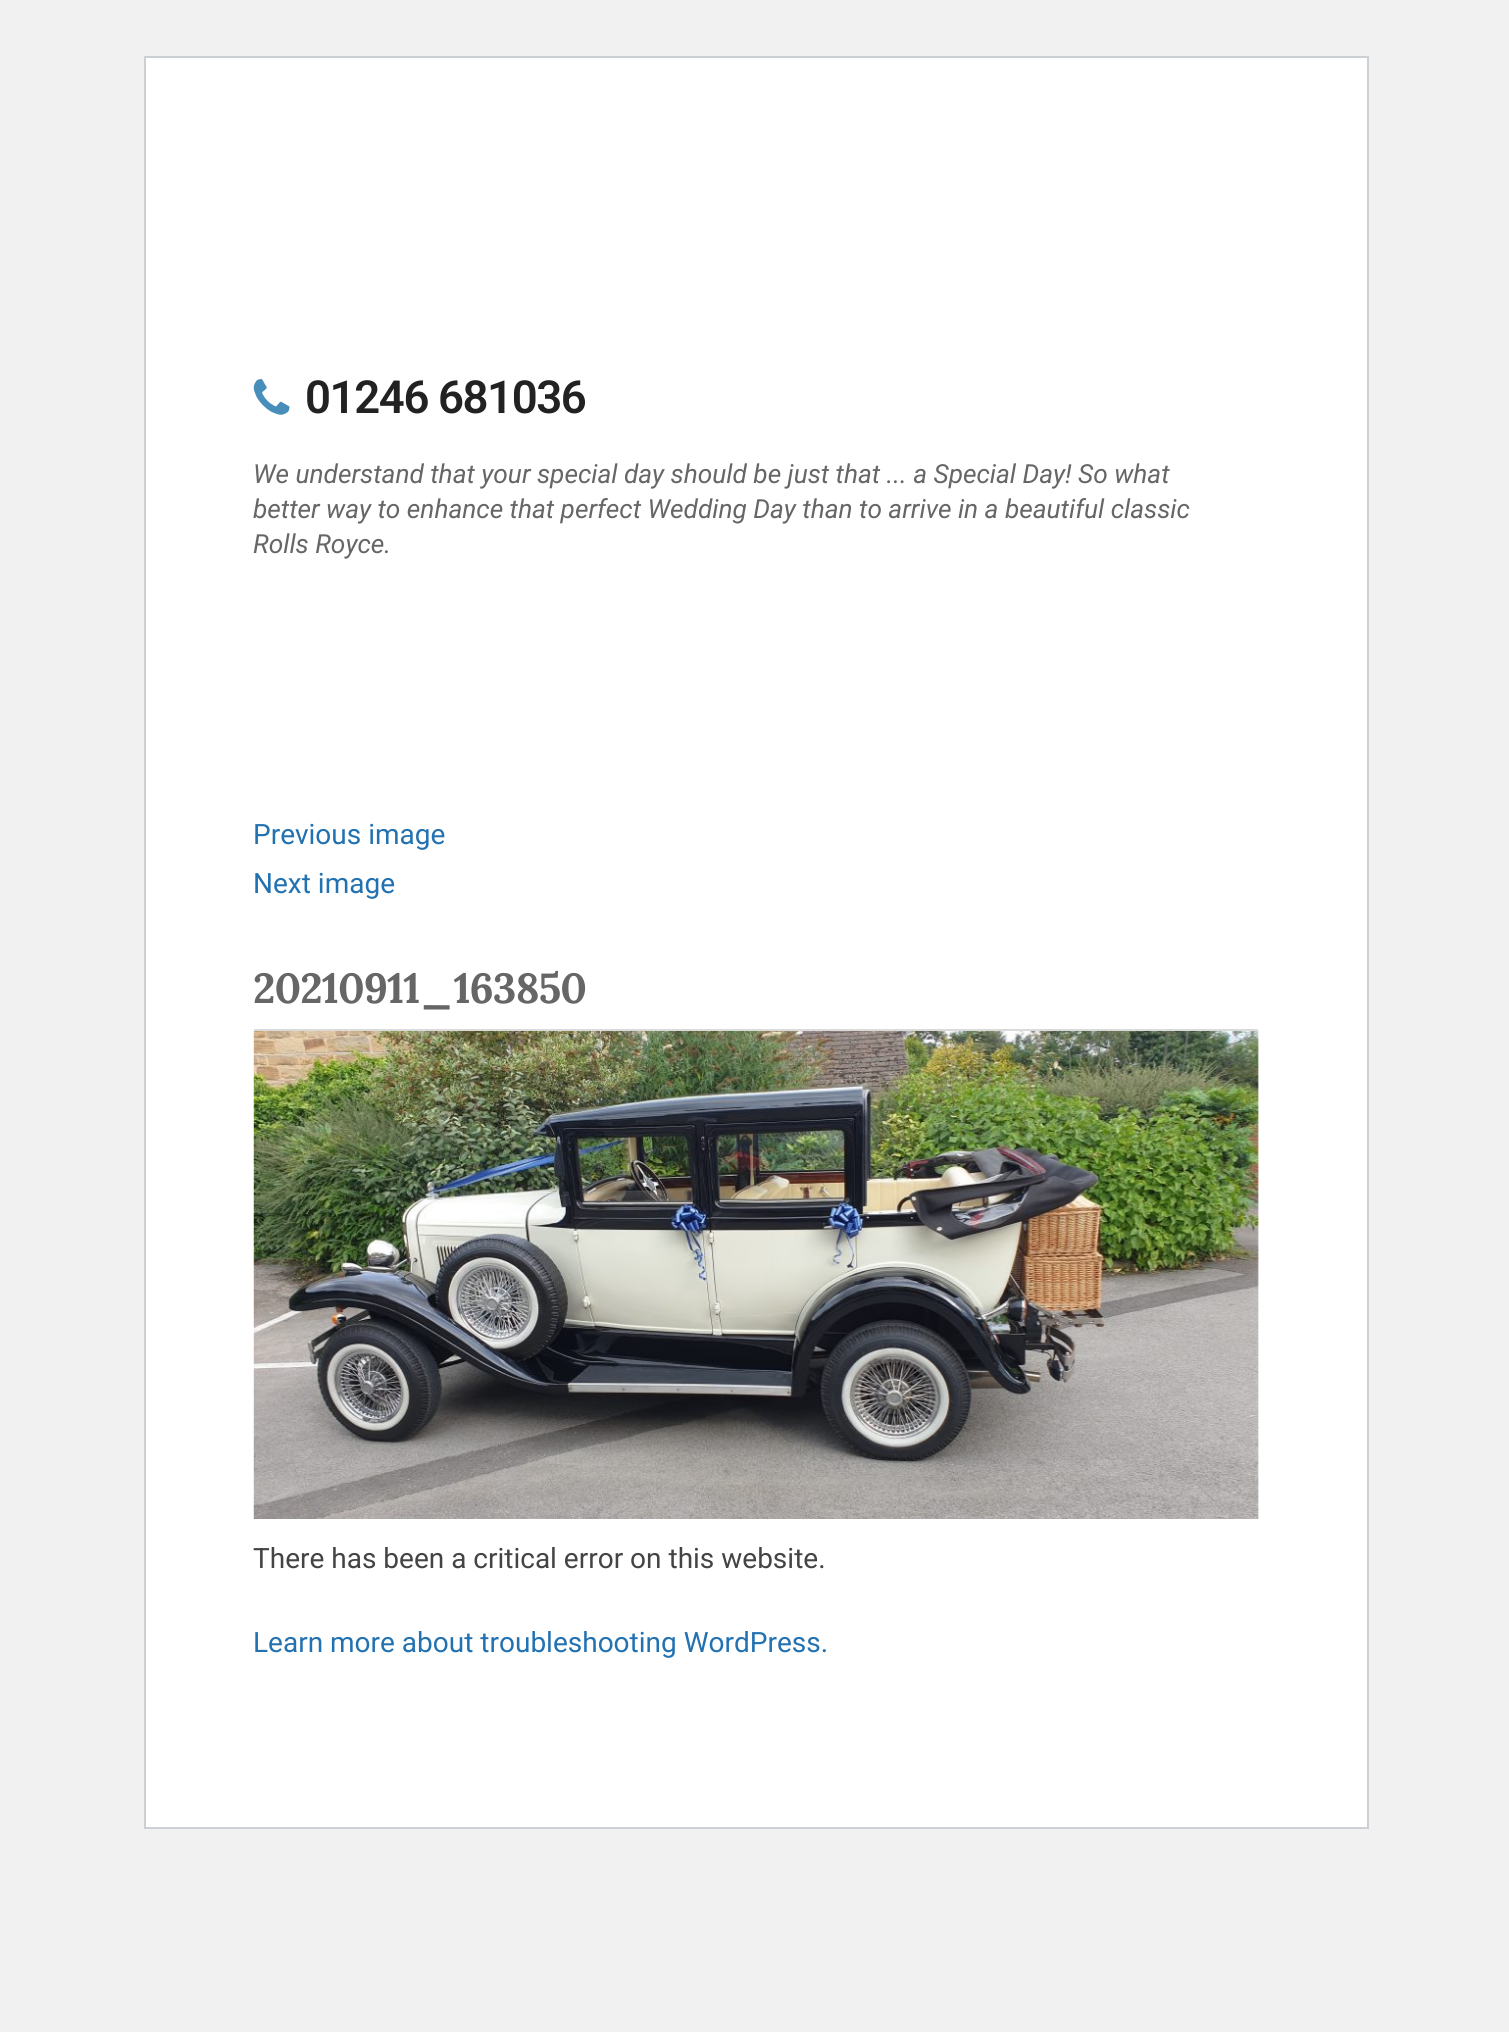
import math
import cairo

surface = cairo.ImageSurface(cairo.FORMAT_RGB24, 1509, 2032)
c = cairo.Context(surface)
options = cairo.FontOptions()
options.set_hint_metrics(cairo.HINT_METRICS_OFF)
options.set_hint_style(cairo.HINT_STYLE_NONE)
c.set_font_options(options)
c.set_miter_limit(4)
def C(code):
 c.set_source_rgb(*(v / 255 for v in bytes.fromhex(code[-6:])))
def F(family, size, italic, bold):
 c.select_font_face(family, cairo.FONT_SLANT_ITALIC if italic else cairo.FONT_SLANT_NORMAL, cairo.FONT_WEIGHT_BOLD if bold else cairo.FONT_WEIGHT_NORMAL)
 c.set_font_size(size)
def T(x, y, s):
 c.move_to(x, y)
 c.show_text(s)
def L(x, y, s, letter, word):
 c.move_to(x, y)
 for ch in s:
  c.show_text(ch)
  c.rel_move_to(letter + word * (ch == ' '), 0)
def R(x, y, w, h):
 c.rectangle(x, y, w, h)
 c.fill()
def I(path, x, y, w, h):
 c.save()
 c.set_source_surface(cairo.ImageSurface.create_from_png(path), x, y)
 c.rectangle(x, y, w, h)
 c.fill()
 c.restore()
C('f1f1f1')
c.paint()
C('ffffff')
c.rectangle(145,57,1223,1771)
c.fill_preserve()
C('ccd0d4')
c.stroke()
I('1.png',253,379,37,36)
F('Roboto SemiBold',45.5,0,0)
C('222222')
L(305,413,'01246 681036',-1.4,0)
F('Roboto',26.25,1,0)
C('666666')
T(253,483,'We understand that your special day should be just that ... a Special Day! So what')
T(253,518,'better way to enhance that perfect Wedding Day than to arrive in a beautiful classic')
T(253,553,'Rolls Royce.')
F('Roboto',28,0,0)
C('2271b1')
T(253,844,'Previous image')
T(253,893,'Next image')
C('dadada')
R(254,1029,1004,2)
F('Lora',42,0,1)
C('666666')
L(253,1003,'20210911_163850',-.9,0)
I('2.png',253,1031,1006,488)
F('Roboto',28,0,0)
C('444444')
T(253,1568,'There has been a critical error on this website.')
C('2271b1')
T(253,1652,'Learn more about troubleshooting WordPress.')
surface.write_to_png('o.png')
